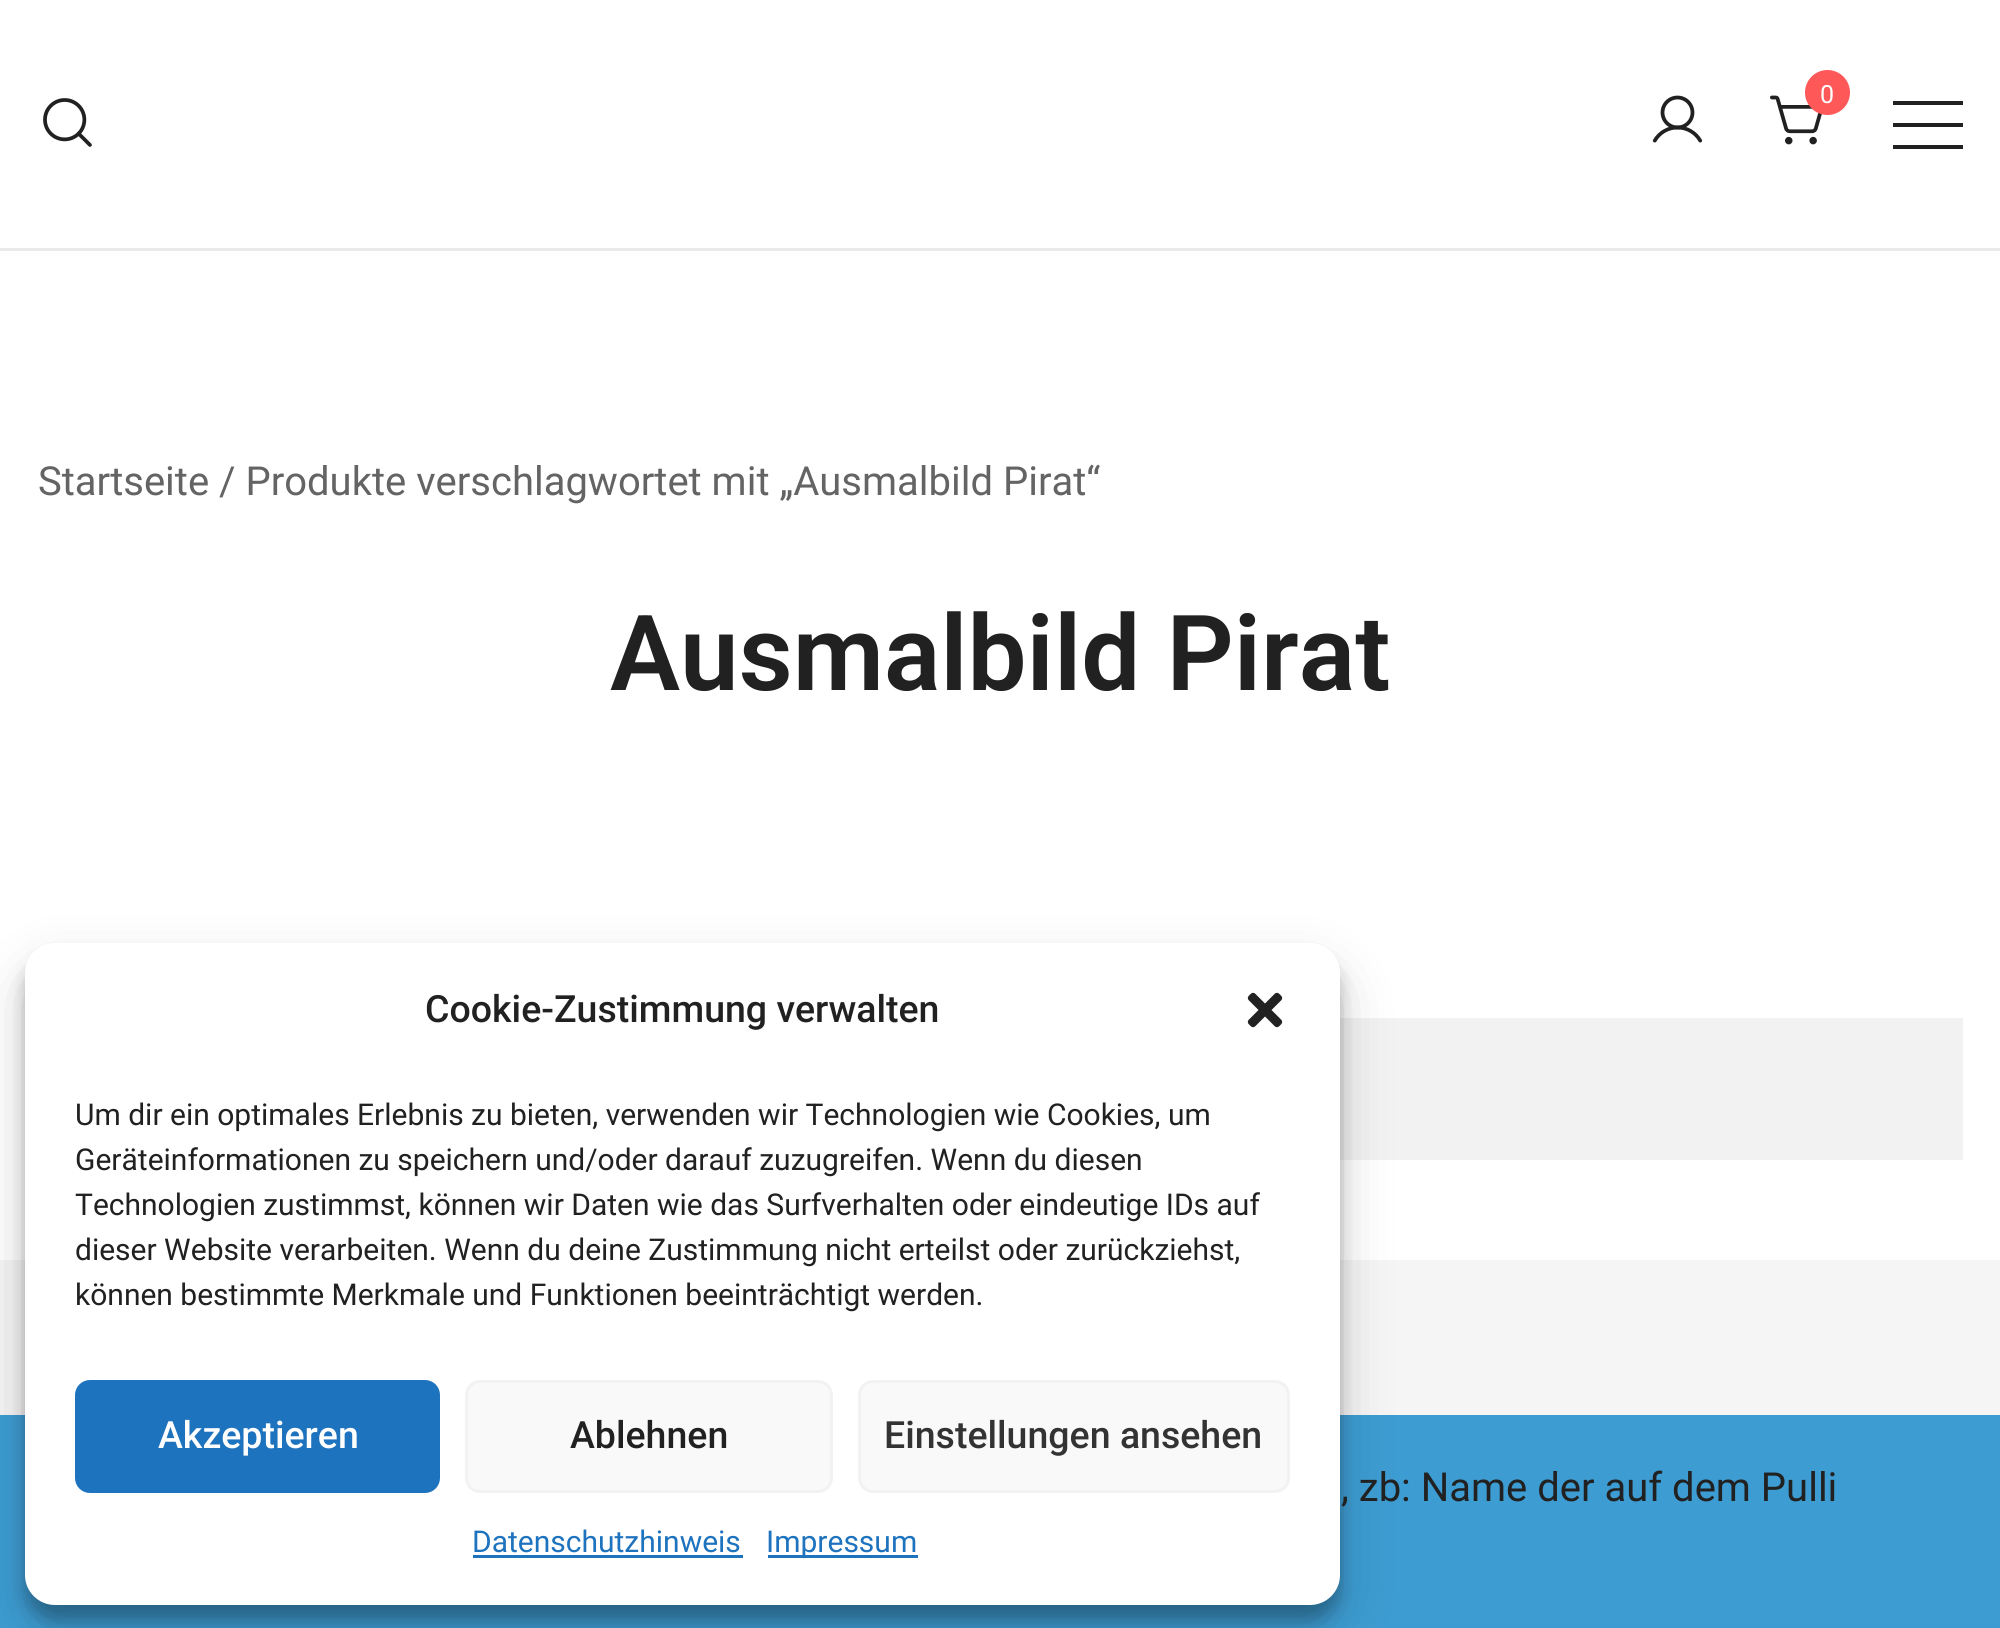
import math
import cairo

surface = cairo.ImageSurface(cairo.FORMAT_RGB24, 2000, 1628)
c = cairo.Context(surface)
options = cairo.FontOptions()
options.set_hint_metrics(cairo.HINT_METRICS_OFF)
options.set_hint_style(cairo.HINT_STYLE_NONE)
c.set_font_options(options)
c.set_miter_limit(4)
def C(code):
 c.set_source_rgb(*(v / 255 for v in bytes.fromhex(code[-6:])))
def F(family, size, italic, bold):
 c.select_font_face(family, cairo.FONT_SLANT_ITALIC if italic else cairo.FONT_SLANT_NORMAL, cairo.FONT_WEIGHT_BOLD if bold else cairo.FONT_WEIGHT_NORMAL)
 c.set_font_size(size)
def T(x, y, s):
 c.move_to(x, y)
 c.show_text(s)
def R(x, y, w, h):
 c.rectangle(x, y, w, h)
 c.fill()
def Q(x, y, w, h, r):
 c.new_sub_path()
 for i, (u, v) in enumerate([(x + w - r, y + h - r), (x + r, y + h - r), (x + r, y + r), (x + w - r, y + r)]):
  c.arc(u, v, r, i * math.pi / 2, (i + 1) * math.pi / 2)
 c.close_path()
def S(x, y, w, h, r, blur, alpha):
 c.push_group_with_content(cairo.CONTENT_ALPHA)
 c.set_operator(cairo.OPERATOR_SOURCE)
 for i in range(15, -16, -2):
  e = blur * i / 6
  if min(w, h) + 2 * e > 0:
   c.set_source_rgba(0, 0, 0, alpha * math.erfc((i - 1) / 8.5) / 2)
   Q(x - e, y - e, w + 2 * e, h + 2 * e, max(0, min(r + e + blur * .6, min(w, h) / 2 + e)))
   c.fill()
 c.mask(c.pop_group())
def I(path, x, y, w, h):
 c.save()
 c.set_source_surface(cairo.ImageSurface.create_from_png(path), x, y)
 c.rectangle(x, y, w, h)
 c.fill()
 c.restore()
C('ffffff')
c.paint()
C('eaeaea')
R(0,248,2000,3)
I('1.png',1652,95,51,48)
I('2.png',1770,95,52,50)
C('ff5858')
c.arc(1827.5,92.5,21,0,2 * math.pi)
c.fill_preserve()
c.set_line_width(3)
c.stroke()
F('Roboto',25,0,0)
C('ffffff')
T(1820,103,'0')
C('212121')
R(1893,101,70,4)
R(1893,123,70,4)
R(1893,145,70,4)
I('3.png',43,98,49,49)
F('Roboto',40,0,0)
C('646464')
T(38,495,'Startseite / Produkte verschlagwortet mit „Ausmalbild Pirat“')
F('Roboto SemiBold',105,0,0)
C('212121')
T(610,690,'Ausmalbild Pirat')
C('f2f2f2')
R(1340,1018,623,142)
C('f5f5f5')
R(0,1260,2000,155)
C('3d9cd2')
R(0,1415,2000,213)
C('000000')
S(25,958,1315,662,30,7.5,.23)
S(25,968,1315,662,30,25,.19)
C('ffffff')
Q(25,943,1315,662,30)
c.fill()
F('Roboto Medium',37.5,0,0)
C('212121')
T(425,1022,'Cookie-Zustimmung verwalten')
I('4.png',1247,992,36,36)
F('Roboto',30,0,0)
T(75,1125,'Um dir ein optimales Erlebnis zu bieten, verwenden wir Technologien wie Cookies, um')
T(75,1170,'Geräteinformationen zu speichern und/oder darauf zuzugreifen. Wenn du diesen')
T(75,1215,'Technologien zustimmst, können wir Daten wie das Surfverhalten oder eindeutige IDs auf')
T(75,1260,'dieser Website verarbeiten. Wenn du deine Zustimmung nicht erteilst oder zurückziehst,')
T(75,1305,'können bestimmte Merkmale und Funktionen beeinträchtigt werden.')
C('1e73be')
Q(76.5,1381.5,362,110,13.5)
c.fill_preserve()
c.stroke()
F('Roboto Medium',37.5,0,0)
C('ffffff')
T(158,1448,'Akzeptieren')
C('f9f9f9')
Q(466.5,1381.5,365,110,13.5)
c.fill_preserve()
C('f2f2f2')
c.stroke()
C('212121')
T(570,1448,'Ablehnen')
C('f9f9f9')
Q(859.5,1381.5,429,110,13.5)
c.fill_preserve()
C('f2f2f2')
c.stroke()
C('333333')
T(884,1448,'Einstellungen ansehen')
F('Roboto',30,0,0)
C('1e73be')
T(472,1552,'Datenschutzhinweis')
R(473,1555,270,3)
R(768,1555,150,3)
T(766,1552,'Impressum')
F('Roboto',40,0,0)
C('212121')
T(1341,1501,', zb: Name der auf dem Pulli')
surface.write_to_png('o.png')
